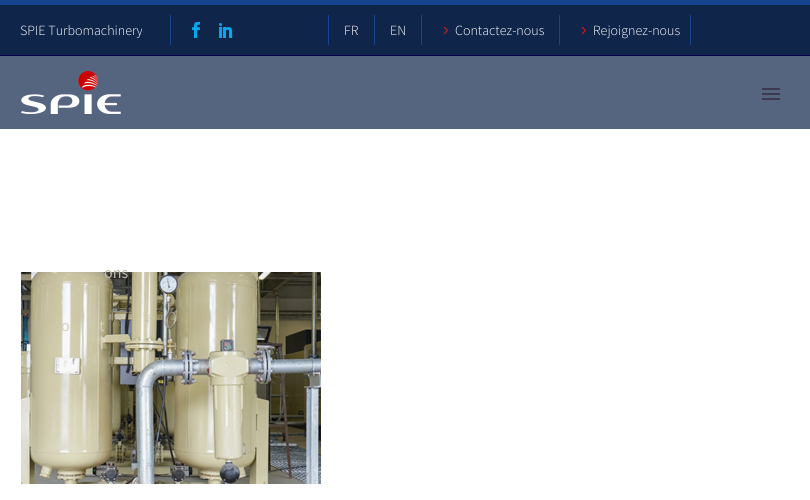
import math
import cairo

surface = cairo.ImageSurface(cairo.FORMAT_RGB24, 810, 500)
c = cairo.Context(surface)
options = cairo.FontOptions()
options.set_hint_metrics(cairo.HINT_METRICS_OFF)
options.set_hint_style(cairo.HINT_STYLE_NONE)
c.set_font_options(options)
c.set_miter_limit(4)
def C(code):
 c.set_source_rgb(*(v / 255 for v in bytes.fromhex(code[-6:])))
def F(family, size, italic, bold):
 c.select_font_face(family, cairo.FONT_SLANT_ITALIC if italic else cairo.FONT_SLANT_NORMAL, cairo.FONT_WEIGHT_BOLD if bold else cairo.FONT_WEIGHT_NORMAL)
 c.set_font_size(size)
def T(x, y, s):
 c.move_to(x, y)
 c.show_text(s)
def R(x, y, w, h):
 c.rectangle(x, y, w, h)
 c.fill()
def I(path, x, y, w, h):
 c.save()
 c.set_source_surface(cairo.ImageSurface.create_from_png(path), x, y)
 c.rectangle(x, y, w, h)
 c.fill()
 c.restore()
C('55647f')
c.paint()
C('10254a')
R(0,5,810,50)
C('18448f')
R(0,0,810,5)
C('010254')
R(0,55,810,1)
F('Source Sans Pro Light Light',14,0,0)
C('ffffff')
T(20,35,'SPIE Turbomachinery')
C('18448f')
R(170,15,1,30)
I('1.png',192,22,8,16)
I('2.png',219,23,14,15)
R(328,15,1,30)
C('ffffff')
T(344,35,'FR')
C('18448f')
R(374,15,1,30)
C('ffffff')
T(390,35,'EN')
C('18448f')
R(421,15,1,30)
I('3.png',443,26,5,9)
C('ffffff')
T(455,35,'Contactez-nous')
C('18448f')
R(559,15,1,30)
I('3.png',581,26,5,9)
C('ffffff')
T(593,35,'Rejoignez-nous')
C('18448f')
R(690,15,1,30)
C('ffffff')
R(0,129,810,371)
I('4.png',21,272,300,212)
I('5.png',21,71,100,43)
C('3c3950')
R(762,88,18,2)
R(762,93,18,2)
R(762,98,18,2)
F('Source Sans Pro',16,0,0)
C('bfbcad')
T(104,278,'ons')
C('d4d0b9')
T(61,331,'o')
T(99,331,'t')
surface.write_to_png('o.png')
